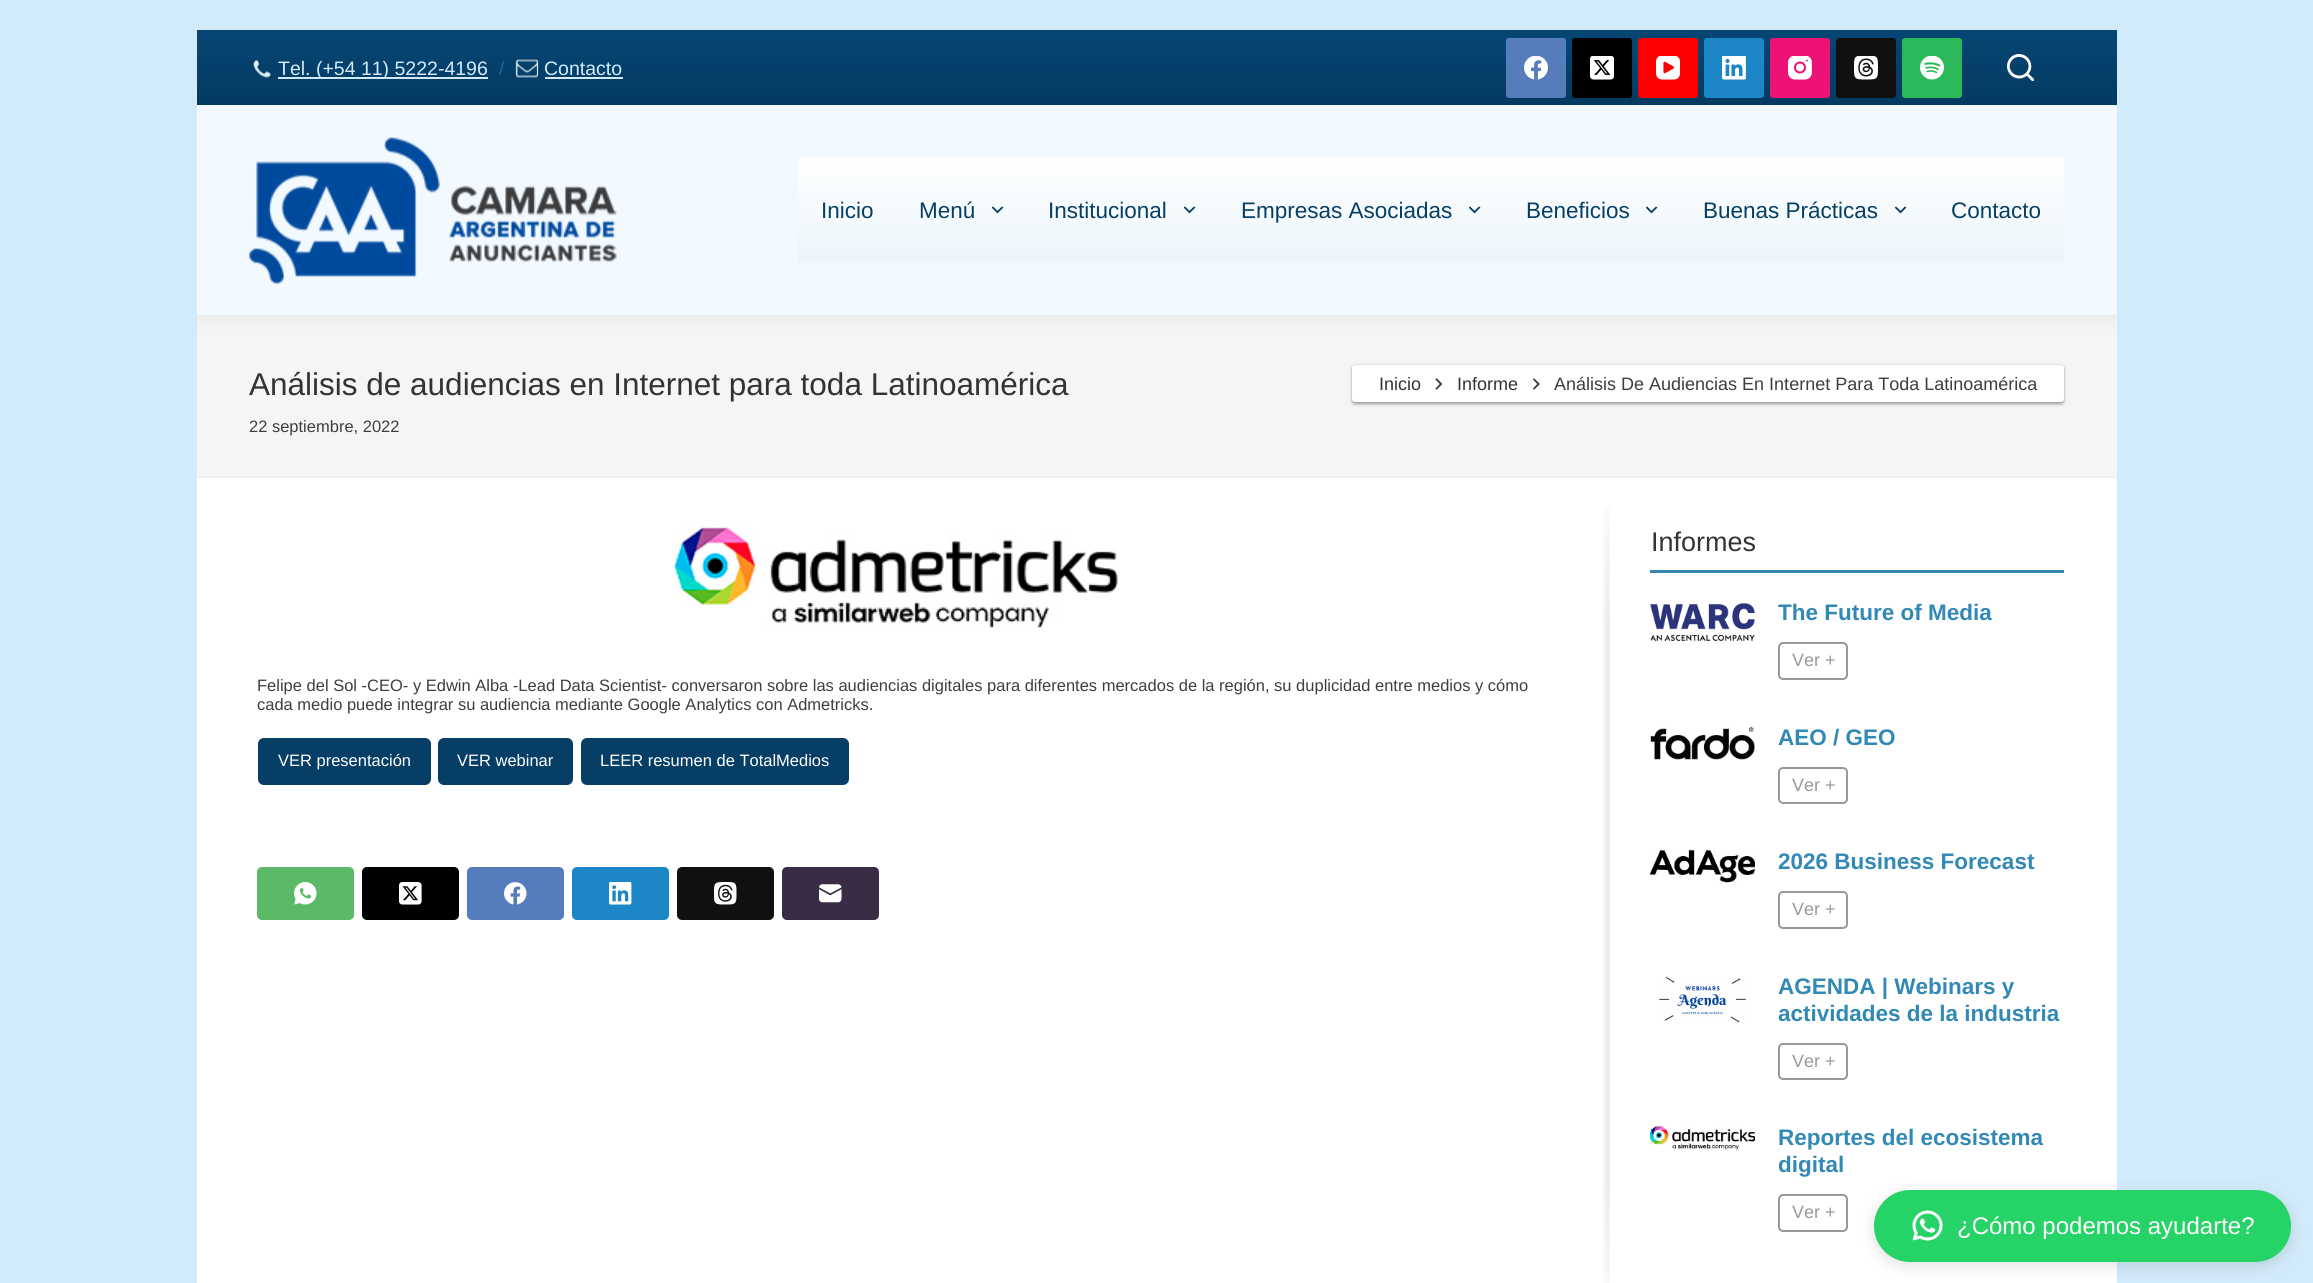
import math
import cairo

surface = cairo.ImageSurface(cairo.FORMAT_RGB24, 2313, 1283)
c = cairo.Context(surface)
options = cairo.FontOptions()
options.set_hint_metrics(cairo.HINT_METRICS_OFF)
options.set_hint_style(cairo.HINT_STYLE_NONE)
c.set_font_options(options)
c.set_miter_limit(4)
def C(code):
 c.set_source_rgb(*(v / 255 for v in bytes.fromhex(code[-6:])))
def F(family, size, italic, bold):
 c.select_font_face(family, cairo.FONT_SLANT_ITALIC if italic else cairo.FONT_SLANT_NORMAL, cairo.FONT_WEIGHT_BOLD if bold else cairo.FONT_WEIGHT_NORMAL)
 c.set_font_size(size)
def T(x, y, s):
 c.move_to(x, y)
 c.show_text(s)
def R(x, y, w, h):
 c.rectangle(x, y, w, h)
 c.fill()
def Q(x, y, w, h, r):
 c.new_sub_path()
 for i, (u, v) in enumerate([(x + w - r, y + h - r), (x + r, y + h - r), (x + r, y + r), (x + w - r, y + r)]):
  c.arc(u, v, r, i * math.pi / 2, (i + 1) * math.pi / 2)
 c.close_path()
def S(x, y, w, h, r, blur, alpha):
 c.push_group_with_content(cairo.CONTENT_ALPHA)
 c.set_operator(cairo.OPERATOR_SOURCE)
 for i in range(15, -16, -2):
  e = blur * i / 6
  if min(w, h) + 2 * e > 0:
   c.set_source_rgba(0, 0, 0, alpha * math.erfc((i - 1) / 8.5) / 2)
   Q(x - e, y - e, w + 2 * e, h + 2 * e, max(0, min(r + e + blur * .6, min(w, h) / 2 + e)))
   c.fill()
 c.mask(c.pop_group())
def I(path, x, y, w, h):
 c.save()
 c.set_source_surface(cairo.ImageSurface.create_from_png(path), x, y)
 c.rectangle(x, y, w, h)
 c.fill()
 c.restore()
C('d2ebfa')
c.paint()
gradient = cairo.LinearGradient(1157,105,1157,30)
gradient.add_color_stop_rgba(0,0.016,0.227,0.38,1)
gradient.add_color_stop_rgba(1,0.024,0.275,0.455,1)
c.set_source(gradient)
R(197,30,1920,75)
I('1.png',253,59,18,19)
C('d2ebfa')
R(278,77,210,2)
F('Liberation Sans',19.5,0,0)
T(278,75,'Tel. (+54 11) 5222-4196')
C('26638f')
T(499,75,'/')
I('2.png',515,59,24,19)
C('d2ebfa')
T(544,75,'Contacto')
R(545,77,78,2)
C('557dbc')
Q(1506,38,60,60,3)
c.fill()
I('3.png',1524,56,24,24)
C('000000')
Q(1572,38,60,60,3)
c.fill()
I('4.png',1590,56,24,24)
C('ff0000')
Q(1638,38,60,60,3)
c.fill()
I('5.png',1656,56,24,24)
C('1c86c6')
Q(1704,38,60,60,3)
c.fill()
I('6.png',1722,56,24,24)
C('ed1376')
Q(1770,38,60,60,3)
c.fill()
I('7.png',1788,56,24,24)
C('101010')
Q(1836,38,60,60,3)
c.fill()
I('8.png',1854,56,24,24)
C('2ab859')
Q(1902,38,60,60,3)
c.fill()
I('9.png',1920,56,24,24)
I('10.png',2007,54,27,27)
C('f2f9ff')
R(197,105,1920,210)
I('11.png',249,137,368,147)
gradient = cairo.LinearGradient(847,158,847,263)
gradient.add_color_stop_rgba(0,1,1,1,1)
gradient.add_color_stop_rgba(1,0.922,0.961,0.98,1)
c.set_source(gradient)
R(798,158,98,105)
F('Liberation Sans',22.5,0,0)
C('063e66')
T(821,218,'Inicio')
gradient = cairo.LinearGradient(961,158,961,263)
gradient.add_color_stop_rgba(0,1,1,1,1)
gradient.add_color_stop_rgba(1,0.922,0.961,0.98,1)
c.set_source(gradient)
R(896,158,130,105)
C('063e66')
T(919,218,'Menú')
I('12.png',992,206,12,8)
gradient = cairo.LinearGradient(1122,158,1122,263)
gradient.add_color_stop_rgba(0,1,1,1,1)
gradient.add_color_stop_rgba(1,0.922,0.961,0.98,1)
c.set_source(gradient)
R(1026,158,192,105)
C('063e66')
T(1048,218,'Institucional')
I('12.png',1184,206,12,8)
gradient = cairo.LinearGradient(1361,157,1361,263)
gradient.add_color_stop_rgba(0,1,1,1,1)
gradient.add_color_stop_rgba(1,0.922,0.961,0.98,1)
c.set_source(gradient)
R(1218,158,285,105)
C('063e66')
T(1241,218,'Empresas Asociadas')
I('13.png',1469,206,12,8)
gradient = cairo.LinearGradient(1592,158,1592,263)
gradient.add_color_stop_rgba(0,1,1,1,1)
gradient.add_color_stop_rgba(1,0.922,0.961,0.98,1)
c.set_source(gradient)
R(1503,158,177,105)
C('063e66')
T(1526,218,'Beneficios')
I('12.png',1646,206,12,8)
gradient = cairo.LinearGradient(1805,158,1805,263)
gradient.add_color_stop_rgba(0,1,1,1,1)
gradient.add_color_stop_rgba(1,0.922,0.961,0.98,1)
c.set_source(gradient)
R(1680,158,249,105)
C('063e66')
T(1703,218,'Buenas Prácticas')
I('12.png',1895,206,12,8)
gradient = cairo.LinearGradient(1997,158,1997,263)
gradient.add_color_stop_rgba(0,1,1,1,1)
gradient.add_color_stop_rgba(1,0.922,0.961,0.98,1)
c.set_source(gradient)
R(1929,158,135,105)
C('063e66')
T(1951,218,'Contacto')
gradient = cairo.LinearGradient(1157,315,1157,476)
gradient.add_color_stop_rgba(0,0.925,0.925,0.925,1)
gradient.add_color_stop_rgba(.1,0.961,0.961,0.961,1)
c.set_source(gradient)
R(197,315,1920,161)
C('ededed')
R(197,476,1920,2)
F('Liberation Sans',31.5,0,0)
C('333333')
T(249,395,'Análisis de audiencias en Internet para toda Latinoamérica')
C('000000')
S(1352,366,712,38,3,1.5,.37)
C('ffffff')
Q(1352,365,712,37,3)
c.fill()
F('Liberation Sans',18,0,0)
C('333333')
T(1379,390,'Inicio')
I('14.png',1435,378,8,12)
T(1457,390,'Informe')
I('15.png',1533,378,7,12)
C('3e3e3e')
T(1554,390,'Análisis De Audiencias En Internet Para Toda Latinoamérica')
F('Liberation Sans',16.5,0,0)
T(249,432,'22 septiembre, 2022')
C('ffffff')
R(197,478,1920,805)
I('16.png',673,526,445,103)
C('3e3e3e')
T(257,691,'Felipe del Sol -CEO- y Edwin Alba -Lead Data Scientist- conversaron sobre las audiencias digitales para diferentes mercados de la región, su duplicidad entre medios y cómo')
T(257,710,'cada medio puede integrar su audiencia mediante Google Analytics con Admetricks.')
C('063e66')
Q(258,738,173,47,6)
c.fill()
C('ffffff')
T(278,766,'VER presentación')
C('063e66')
Q(438,738,135,47,6)
c.fill()
C('ffffff')
T(457,766,'VER webinar')
C('063e66')
Q(581,738,268,47,6)
c.fill()
C('ffffff')
T(600,766,'LEER resumen de TotalMedios')
C('5bba67')
Q(257,867,97,53,5)
c.fill()
I('17.png',294,882,23,23)
C('000000')
Q(362,867,97,53,5)
c.fill()
I('18.png',399,882,23,23)
C('557dbc')
Q(467,867,97,53,5)
c.fill()
I('19.png',504,882,23,23)
C('1c86c6')
Q(572,867,97,53,5)
c.fill()
I('20.png',609,882,23,23)
C('101010')
Q(677,867,97,53,5)
c.fill()
I('21.png',714,882,23,23)
C('392c44')
Q(782,867,97,53,5)
c.fill()
I('22.png',819,884,23,19)
I('23.png',1603,508,7,775)
C('3289b5')
R(1650,570,414,3)
F('Liberation Sans',27,0,0)
C('333333')
T(1651,551,'Informes')
I('24.png',1650,603,105,38)
F('Liberation Sans',22.5,0,1)
C('3289b5')
T(1778,620,'The Future of Media')
Q(1779,643,68,36,4)
C('999999')
c.stroke()
F('Liberation Sans',18,0,0)
T(1792,666,'Ver +')
I('25.png',1650,727,105,33)
F('Liberation Sans',22.5,0,1)
C('3289b5')
T(1778,745,'AEO / GEO')
Q(1779,768,68,35,4)
C('999999')
c.stroke()
F('Liberation Sans',18,0,0)
T(1792,791,'Ver +')
I('26.png',1650,849,105,34)
F('Liberation Sans',22.5,0,1)
C('3289b5')
T(1778,869,'2026 Business Forecast')
Q(1779,892,68,36,4)
C('999999')
c.stroke()
F('Liberation Sans',18,0,0)
T(1792,915,'Ver +')
I('27.png',1659,976,87,47)
F('Liberation Sans',22.5,0,1)
C('3289b5')
T(1778,994,'AGENDA | Webinars y')
T(1778,1021,'actividades de la industria')
Q(1779,1044,68,35,4)
C('999999')
c.stroke()
F('Liberation Sans',18,0,0)
T(1792,1067,'Ver +')
I('28.png',1650,1125,105,25)
F('Liberation Sans',22.5,0,1)
C('3289b5')
T(1778,1145,'Reportes del ecosistema')
T(1778,1172,'digital')
Q(1779,1195,68,36,4)
C('999999')
c.stroke()
F('Liberation Sans',18,0,0)
T(1792,1218,'Ver +')
C('000000')
S(1874,1194,417,72,36,7.5,.12)
C('25d366')
Q(1874,1190,417,72,36)
c.fill()
I('29.png',1912,1210,31,31)
F('Liberation Sans',24,0,0)
C('ffffff')
T(1957,1234,'¿Cómo podemos ayudarte?')
surface.write_to_png('o.png')
